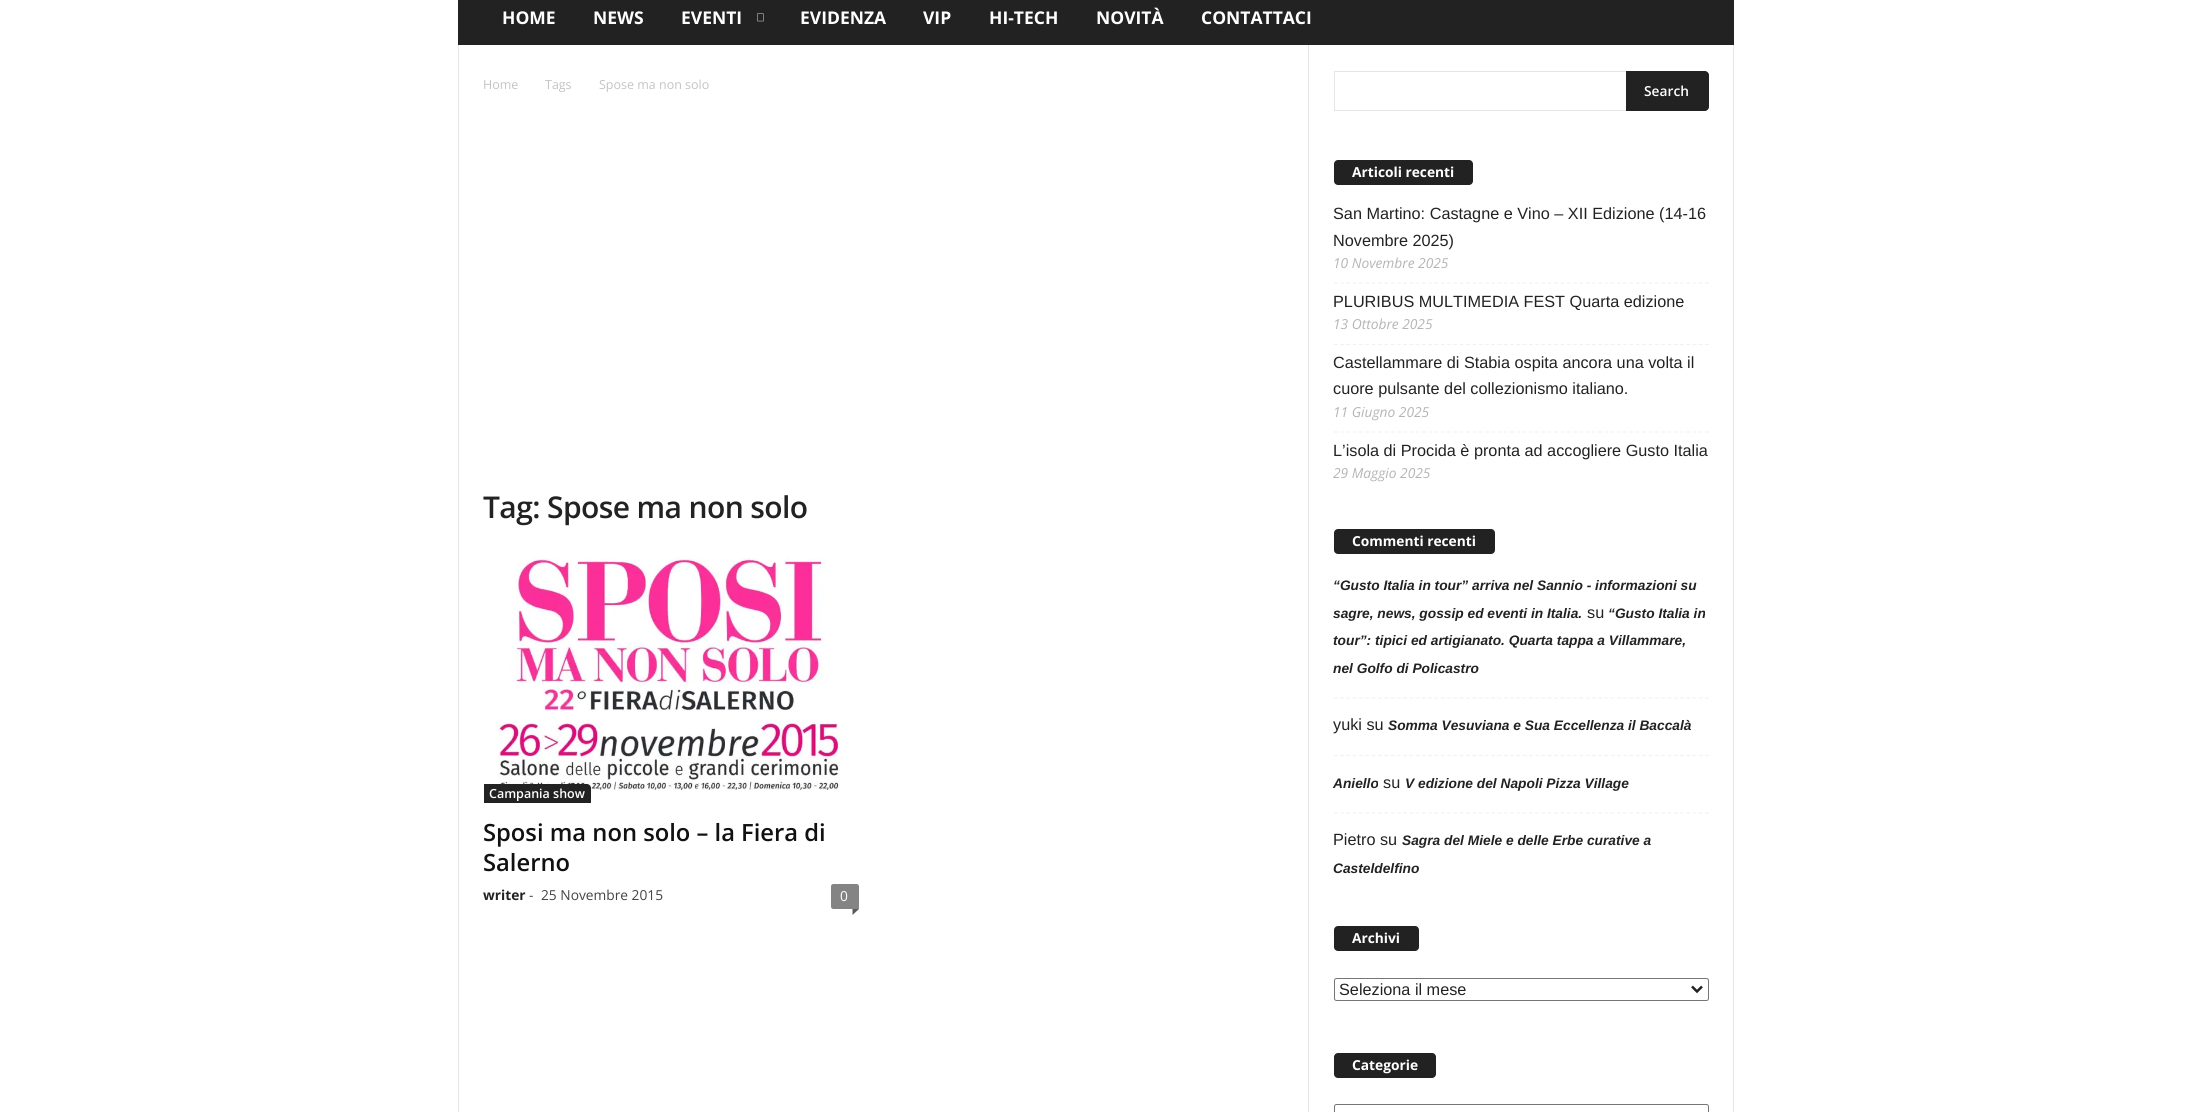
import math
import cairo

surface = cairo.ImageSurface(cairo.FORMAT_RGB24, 2189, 1112)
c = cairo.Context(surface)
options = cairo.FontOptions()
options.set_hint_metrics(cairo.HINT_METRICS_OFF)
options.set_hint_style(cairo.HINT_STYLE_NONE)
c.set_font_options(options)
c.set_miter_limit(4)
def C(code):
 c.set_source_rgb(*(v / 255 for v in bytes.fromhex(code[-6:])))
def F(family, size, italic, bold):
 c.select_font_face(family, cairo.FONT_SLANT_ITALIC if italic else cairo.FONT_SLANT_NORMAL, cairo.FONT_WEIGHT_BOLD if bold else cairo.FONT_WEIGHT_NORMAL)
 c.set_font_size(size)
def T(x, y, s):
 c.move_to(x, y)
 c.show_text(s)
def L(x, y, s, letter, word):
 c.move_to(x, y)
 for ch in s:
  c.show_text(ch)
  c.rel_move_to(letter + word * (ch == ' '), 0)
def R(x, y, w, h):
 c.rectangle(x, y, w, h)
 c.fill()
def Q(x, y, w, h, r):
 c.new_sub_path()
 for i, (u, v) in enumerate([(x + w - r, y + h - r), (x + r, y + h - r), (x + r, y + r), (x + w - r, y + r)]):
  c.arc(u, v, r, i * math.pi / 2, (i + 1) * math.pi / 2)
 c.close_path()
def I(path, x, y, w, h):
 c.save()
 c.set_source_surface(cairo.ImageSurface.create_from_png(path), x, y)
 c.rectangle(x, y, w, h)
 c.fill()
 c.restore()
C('ffffff')
c.paint()
C('222222')
R(458,0,1276,45)
F('Open Sans',17.5,0,1)
C('ffffff')
T(502,24,'HOME')
T(593,24,'NEWS')
T(681,24,'EVENTI')
I('1.png',757,13,7,9)
T(800,24,'EVIDENZA')
T(923,24,'VIP')
T(989,24,'HI-TECH')
T(1096,24,'NOVITÀ')
T(1201,24,'CONTATTACI')
C('e6e6e6')
R(458,45,1,1067)
F('Open Sans',12.5,0,0)
C('c3c3c3')
T(483,89,'Home')
T(545,89,'Tags')
T(599,89,'Spose ma non solo')
F('Open Sans SemiBold',30,0,0)
C('222222')
L(483,518,'Tag: Spose ma non solo',-.6,0)
I('2.png',497,556,343,234)
c.new_path()
c.move_to(484,784)
c.line_to(587,784)
c.curve_to(589,784,591,786,591,788)
c.line_to(591,803)
c.line_to(484,803)
c.close_path()
c.fill()
F('Open Sans SemiBold',12.5,0,0)
C('ffffff')
T(489,798,'Campania show')
F('Open Sans SemiBold',23.75,0,0)
C('111111')
T(483,841,'Sposi ma non solo – la Fiera di')
T(483,871,'Salerno')
F('Open Sans',13.75,0,1)
C('222222')
T(483,900,'writer')
F('Open Sans',13.75,0,0)
C('444444')
T(529,900,'-')
T(541,900,'25 Novembre 2015')
C('848484')
c.new_path()
c.move_to(833.5,884)
c.line_to(856.5,884)
c.curve_to(858,884,859,885,859,886.5)
c.line_to(859,909)
c.line_to(833.5,909)
c.curve_to(832,909,831,908,831,906.5)
c.line_to(831,886.5)
c.curve_to(831,885,832,884,833.5,884)
c.close_path()
c.fill()
C('ffffff')
T(840,901,'0')
C('5b5b5b')
c.new_path()
c.move_to(852.5,909)
c.line_to(859,909)
c.line_to(852.5,915)
c.close_path()
c.fill()
C('e6e6e6')
R(1308,45,1,1067)
R(1334,71,292,1)
R(1334,110,292,1)
R(1334,71,1,40)
C('222222')
c.new_path()
c.move_to(1626,71)
c.line_to(1705,71)
c.curve_to(1707,71,1709,73,1709,75)
c.line_to(1709,107)
c.curve_to(1709,109,1707,111,1705,111)
c.line_to(1626,111)
c.close_path()
c.fill()
F('Open Sans SemiBold',13.75,0,0)
C('ffffff')
T(1644,96,'Search')
C('222222')
Q(1334,160,139,25,4)
c.fill()
F('Open Sans',13.75,0,1)
C('ffffff')
T(1352,177,'Articoli recenti')
c.new_path()
c.move_to(1334,283)
c.line_to(1709,283)
C('f1f1f1')
c.set_line_width(1.2)
c.set_dash([3.75,2.54])
c.stroke()
F('Liberation Sans',16.25,0,0)
C('222222')
T(1333,219,'San Martino: Castagne e Vino – XII Edizione (14-16')
T(1333,246,'Novembre 2025)')
F('Open Sans',13.75,1,0)
C('b5b5b5')
T(1333,268,'10 Novembre 2025')
c.new_path()
c.move_to(1334,344.5)
c.line_to(1709,344.5)
C('f1f1f1')
c.stroke()
F('Liberation Sans',16.25,0,0)
C('222222')
T(1333,307,'PLURIBUS MULTIMEDIA FEST Quarta edizione')
F('Open Sans',13.75,1,0)
C('b5b5b5')
T(1333,329,'13 Ottobre 2025')
c.new_path()
c.move_to(1334,432)
c.line_to(1709,432)
C('f1f1f1')
c.stroke()
F('Liberation Sans',16.25,0,0)
C('222222')
T(1333,368,'Castellammare di Stabia ospita ancora una volta il')
T(1333,394,'cuore pulsante del collezionismo italiano.')
F('Open Sans',13.75,1,0)
C('b5b5b5')
T(1333,417,'11 Giugno 2025')
F('Liberation Sans',16.25,0,0)
C('222222')
T(1333,456,'L’isola di Procida è pronta ad accogliere Gusto Italia')
F('Open Sans',13.75,1,0)
C('b5b5b5')
T(1333,478,'29 Maggio 2025')
C('222222')
Q(1334,529,161,25,4)
c.fill()
F('Open Sans',13.75,0,1)
C('ffffff')
T(1352,546,'Commenti recenti')
c.new_path()
c.move_to(1334,698)
c.line_to(1709,698)
C('f1f1f1')
c.stroke()
F('Liberation Sans',13.75,1,1)
C('222222')
T(1333,590,'“Gusto Italia in tour” arriva nel Sannio - informazioni su')
T(1333,618,'sagre, news, gossip ed eventi in Italia.')
F('Liberation Sans',16.25,0,0)
T(1587,618,'su')
F('Liberation Sans',13.75,1,1)
T(1608,618,'“Gusto Italia in')
T(1333,645,'tour”: tipici ed artigianato. Quarta tappa a Villammare,')
T(1333,673,'nel Golfo di Policastro')
c.new_path()
c.move_to(1334,755.5)
c.line_to(1709,755.5)
C('f1f1f1')
c.stroke()
F('Liberation Sans',16.25,0,0)
C('222222')
T(1333,730,'yuki su')
F('Liberation Sans',13.75,1,1)
T(1388,730,'Somma Vesuviana e Sua Eccellenza il Baccalà')
c.new_path()
c.move_to(1334,813)
c.line_to(1709,813)
C('f1f1f1')
c.stroke()
C('222222')
T(1333,788,'Aniello')
F('Liberation Sans',16.25,0,0)
T(1383,788,'su')
F('Liberation Sans',13.75,1,1)
T(1405,788,'V edizione del Napoli Pizza Village')
F('Liberation Sans',16.25,0,0)
T(1333,845,'Pietro su')
F('Liberation Sans',13.75,1,1)
T(1402,845,'Sagra del Miele e delle Erbe curative a')
T(1333,873,'Casteldelfino')
Q(1334,926,85,25,4)
c.fill()
F('Open Sans',13.75,0,1)
C('ffffff')
T(1352,943,'Archivi')
Q(1334.5,978.5,374,22,2)
C('767676')
c.set_line_width(1)
c.set_dash([])
c.stroke()
c.new_path()
c.move_to(1692,986.5)
c.line_to(1697,991.5)
c.line_to(1702,986.5)
C('222222')
c.set_line_width(2.5)
c.stroke()
F('Liberation Sans',16.25,0,0)
T(1339,995,'Seleziona il mese')
Q(1334,1053,102,25,4)
c.fill()
F('Open Sans',13.75,0,1)
C('ffffff')
T(1352,1070,'Categorie')
Q(1334.5,1104.5,374,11,2)
C('767676')
c.set_line_width(1)
c.stroke()
C('e6e6e6')
R(1733,45,1,1067)
surface.write_to_png('o.png')
